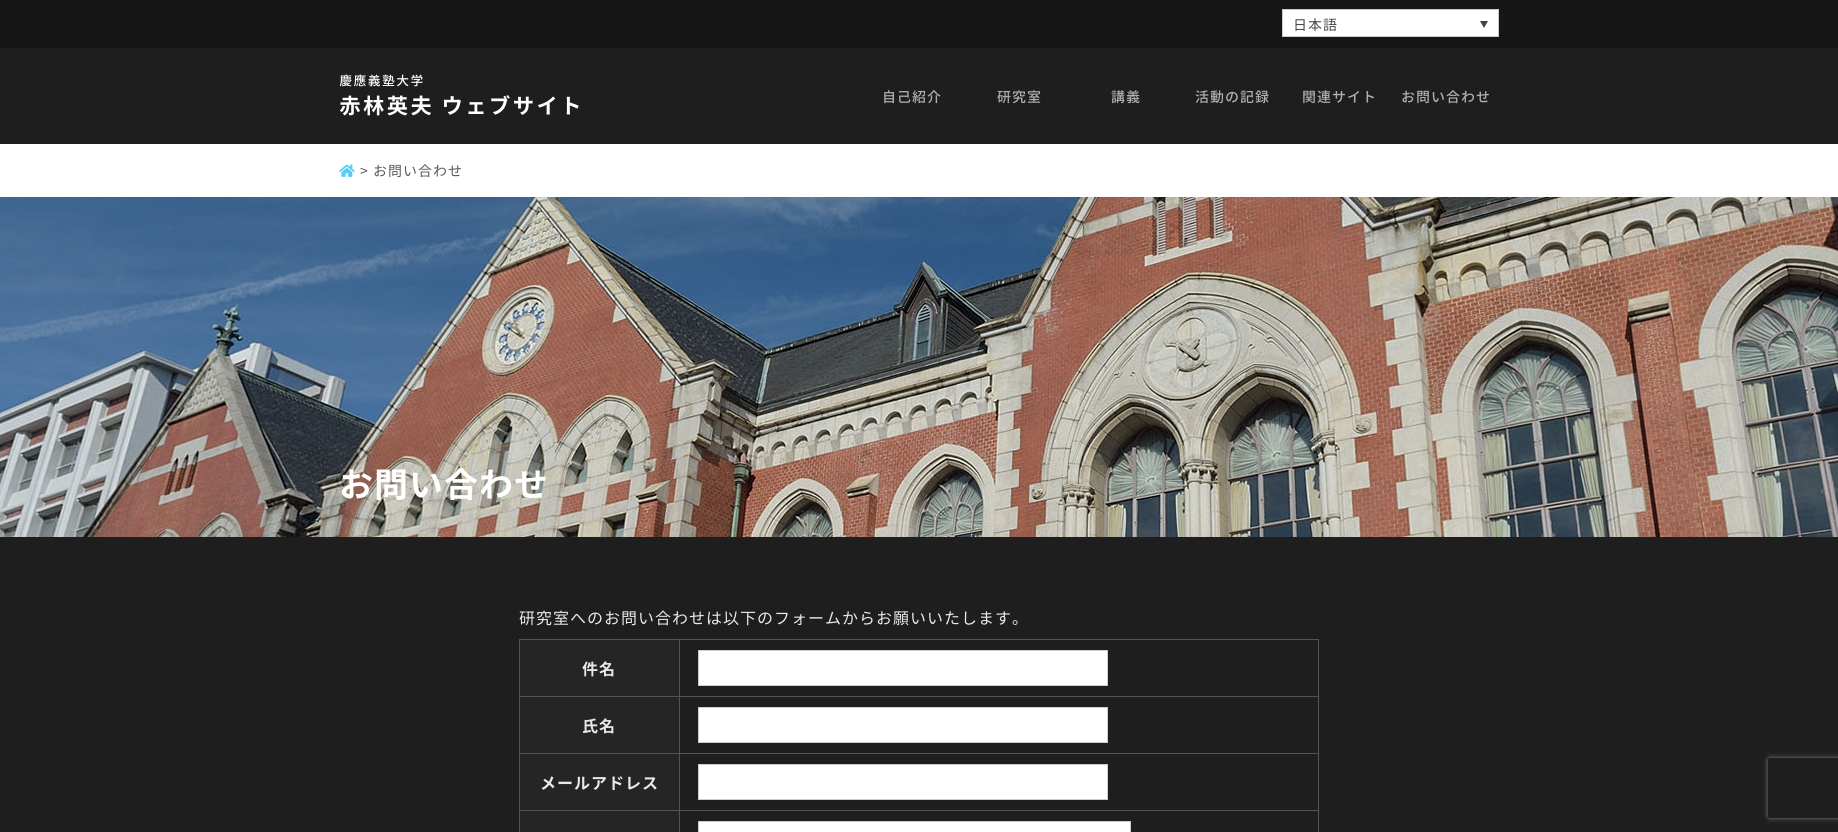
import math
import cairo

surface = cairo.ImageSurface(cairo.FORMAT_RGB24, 1838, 832)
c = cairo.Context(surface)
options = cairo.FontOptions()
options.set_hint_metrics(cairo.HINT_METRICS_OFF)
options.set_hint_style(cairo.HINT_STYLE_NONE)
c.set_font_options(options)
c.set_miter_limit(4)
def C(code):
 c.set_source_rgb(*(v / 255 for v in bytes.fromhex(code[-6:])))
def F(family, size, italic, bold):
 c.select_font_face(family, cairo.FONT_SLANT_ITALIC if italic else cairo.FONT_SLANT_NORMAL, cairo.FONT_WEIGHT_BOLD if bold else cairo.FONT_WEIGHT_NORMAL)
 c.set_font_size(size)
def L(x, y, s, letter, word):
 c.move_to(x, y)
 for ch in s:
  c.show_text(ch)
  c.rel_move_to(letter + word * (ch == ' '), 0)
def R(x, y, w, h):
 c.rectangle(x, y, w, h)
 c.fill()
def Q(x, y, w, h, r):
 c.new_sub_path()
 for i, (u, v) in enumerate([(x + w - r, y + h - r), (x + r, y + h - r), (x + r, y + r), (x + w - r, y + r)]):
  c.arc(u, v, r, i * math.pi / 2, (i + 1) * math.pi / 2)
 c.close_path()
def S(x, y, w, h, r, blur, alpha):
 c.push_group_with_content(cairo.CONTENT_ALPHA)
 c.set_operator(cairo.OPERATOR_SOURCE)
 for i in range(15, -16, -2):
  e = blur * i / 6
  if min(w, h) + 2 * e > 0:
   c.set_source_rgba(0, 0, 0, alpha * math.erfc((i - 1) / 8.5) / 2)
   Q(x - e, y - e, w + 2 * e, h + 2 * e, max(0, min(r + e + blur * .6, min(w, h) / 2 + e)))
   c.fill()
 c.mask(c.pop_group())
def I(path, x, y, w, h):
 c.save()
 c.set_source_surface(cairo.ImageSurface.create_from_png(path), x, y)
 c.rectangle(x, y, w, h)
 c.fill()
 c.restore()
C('1e1e1e')
c.paint()
C('161616')
R(0,0,1838,48)
C('ffffff')
c.rectangle(1282.5,9.5,216,27)
c.fill_preserve()
C('cdcdcd')
c.set_line_width(1)
c.stroke()
F('Noto Sans JP',14,0,0)
C('444444')
L(1293,30,'日本語',1,0)
c.new_path()
c.move_to(1480,21)
c.line_to(1488,21)
c.line_to(1484,28)
c.close_path()
c.fill()
I('1.png',339,74,240,42)
F('Noto Sans JP Medium',14,0,0)
C('b0b0b0')
L(882,102,'自己紹介',1,0)
L(997,102,'研究室',1,0)
L(1111,102,'講義',1,0)
L(1195,102,'活動の記録',1,0)
L(1302,102,'関連サイト',1,0)
L(1401,102,'お問い合わせ',1,0)
C('ffffff')
R(0,144,1838,53)
I('2.png',339,164,16,13)
F('Noto Sans JP',14,0,0)
C('595959')
L(360,176,'> お問い合わせ',1,0)
I('3.png',0,197,1838,340)
F('Noto Sans JP',34,0,1)
C('ffffff')
L(339,497,'お問い合わせ',1,0)
F('Noto Sans JP',16,0,0)
C('e9e9e9')
L(519,624,'研究室へのお問い合わせは以下のフォームからお願いいたします。',1,0)
C('535353')
R(1318,639,1,193)
C('252525')
R(520,640,159,56)
C('535353')
R(519,639,799,1)
R(519,639,1,57)
F('Noto Sans JP',16,0,1)
C('e9e9e9')
L(582,675,'件名',1,0)
C('535353')
R(679,639,1,57)
C('ffffff')
c.rectangle(698.5,650.5,409,35)
c.fill_preserve()
C('cccccc')
c.stroke()
C('252525')
R(520,697,159,56)
C('535353')
R(519,696,799,1)
R(519,696,1,57)
C('e9e9e9')
L(582,732,'氏名',1,0)
C('535353')
R(679,696,1,57)
C('ffffff')
c.rectangle(698.5,707.5,409,35)
c.fill_preserve()
C('cccccc')
c.stroke()
C('252525')
R(520,754,159,56)
C('535353')
R(519,753,799,1)
R(519,753,1,57)
C('e9e9e9')
L(540,789,'メールアドレス',1,0)
C('535353')
R(679,753,1,57)
C('ffffff')
c.rectangle(698.5,764.5,409,35)
c.fill_preserve()
C('cccccc')
c.stroke()
C('252525')
R(520,811,159,21)
C('535353')
R(519,810,799,1)
R(519,810,1,22)
R(679,810,1,22)
C('ffffff')
c.rectangle(698.5,821.5,432,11)
c.fill_preserve()
C('cccccc')
c.stroke()
c.save()
c.set_fill_rule(cairo.FILL_RULE_EVEN_ODD)
c.new_path()
c.move_to(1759,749)
c.line_to(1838,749)
c.line_to(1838,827)
c.line_to(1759,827)
c.close_path()
c.move_to(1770,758)
c.line_to(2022,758)
c.curve_to(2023,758,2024,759,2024,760)
c.line_to(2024,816)
c.curve_to(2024,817,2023,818,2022,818)
c.line_to(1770,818)
c.curve_to(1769,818,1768,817,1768,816)
c.line_to(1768,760)
c.curve_to(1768,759,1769,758,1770,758)
c.close_path()
c.clip()
C('808080')
S(1768,758,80,60,2,2.5,1)
c.restore()
surface.write_to_png('o.png')
